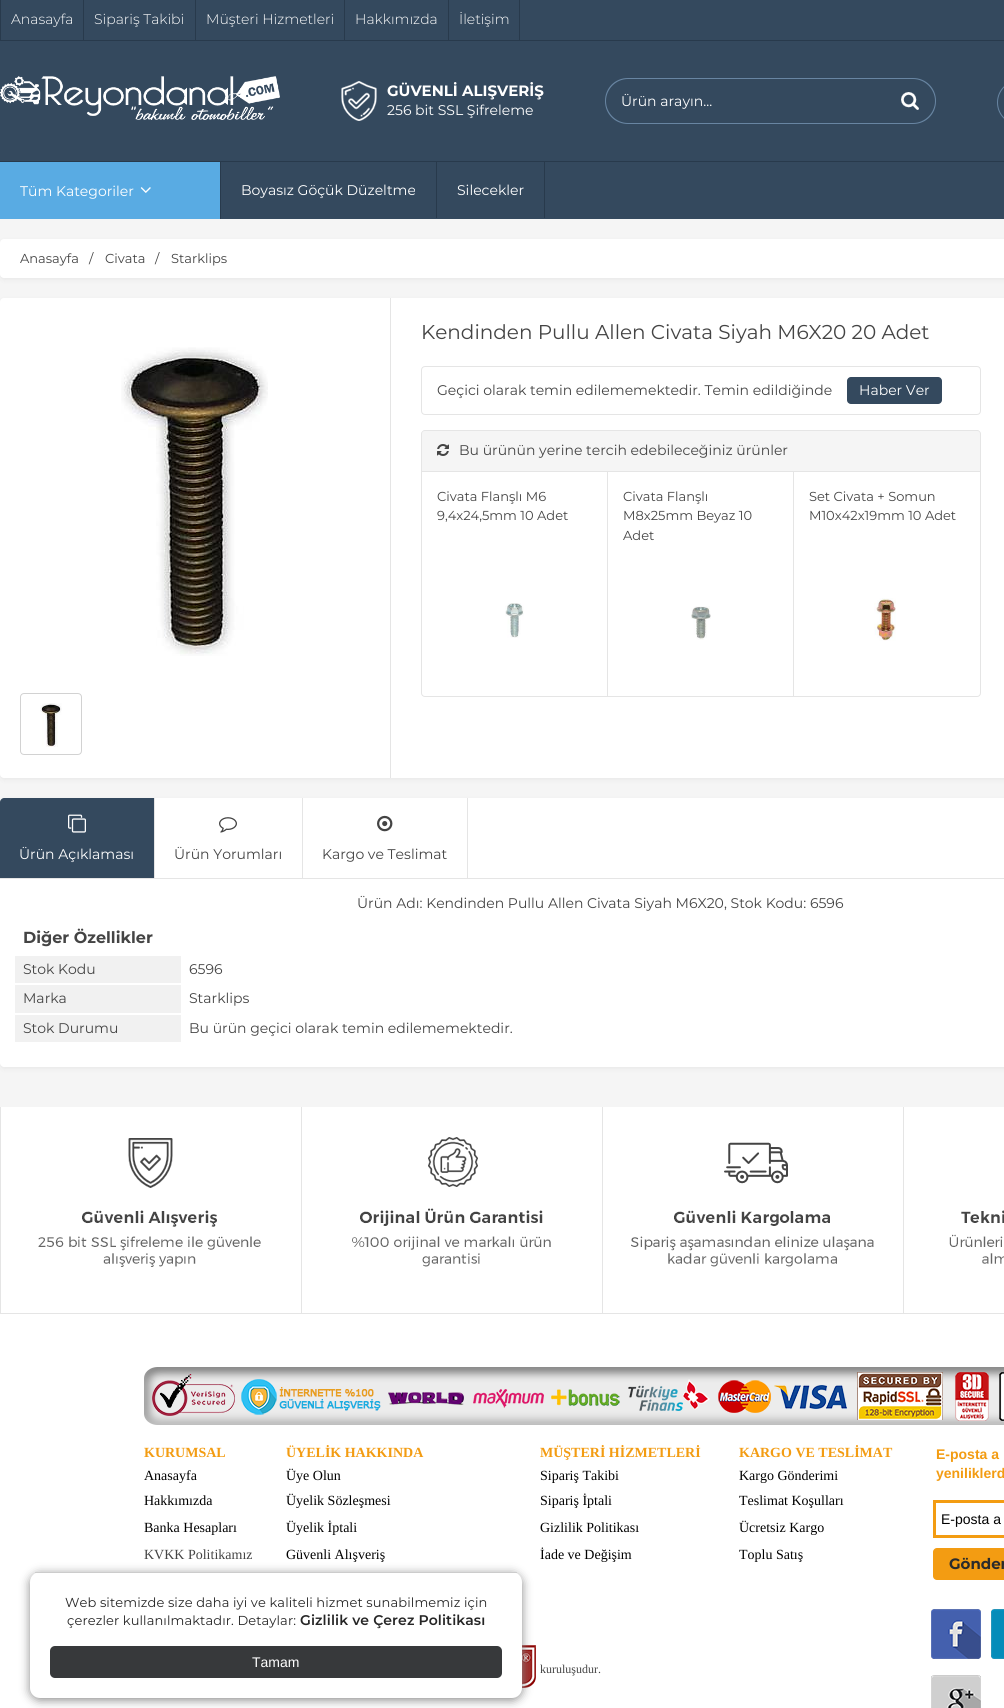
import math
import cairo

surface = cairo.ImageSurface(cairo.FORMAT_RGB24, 1004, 1708)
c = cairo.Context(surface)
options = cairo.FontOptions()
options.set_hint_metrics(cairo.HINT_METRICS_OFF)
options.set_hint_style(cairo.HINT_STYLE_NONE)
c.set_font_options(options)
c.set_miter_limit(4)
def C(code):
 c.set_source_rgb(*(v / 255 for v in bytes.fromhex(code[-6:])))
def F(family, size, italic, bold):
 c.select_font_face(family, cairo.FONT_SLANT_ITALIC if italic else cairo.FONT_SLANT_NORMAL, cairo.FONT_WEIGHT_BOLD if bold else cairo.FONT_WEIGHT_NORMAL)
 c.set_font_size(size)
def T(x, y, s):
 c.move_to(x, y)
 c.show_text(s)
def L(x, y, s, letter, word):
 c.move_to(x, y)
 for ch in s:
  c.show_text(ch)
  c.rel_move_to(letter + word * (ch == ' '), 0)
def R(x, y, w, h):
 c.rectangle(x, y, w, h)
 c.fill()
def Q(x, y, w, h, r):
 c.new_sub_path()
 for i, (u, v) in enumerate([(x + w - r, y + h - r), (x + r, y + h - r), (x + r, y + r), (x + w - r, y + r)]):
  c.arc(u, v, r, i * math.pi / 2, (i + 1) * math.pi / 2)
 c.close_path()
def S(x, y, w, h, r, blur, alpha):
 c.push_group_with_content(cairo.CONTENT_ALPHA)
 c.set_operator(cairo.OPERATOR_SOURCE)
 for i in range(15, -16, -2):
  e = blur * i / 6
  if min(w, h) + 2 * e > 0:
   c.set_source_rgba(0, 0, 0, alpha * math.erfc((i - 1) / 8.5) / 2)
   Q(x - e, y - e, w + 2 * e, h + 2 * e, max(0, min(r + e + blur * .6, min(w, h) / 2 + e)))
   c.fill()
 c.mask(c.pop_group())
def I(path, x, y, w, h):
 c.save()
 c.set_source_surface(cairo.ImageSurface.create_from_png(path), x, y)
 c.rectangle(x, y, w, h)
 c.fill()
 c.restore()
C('f5f5f5')
c.paint()
C('34495e')
R(0,0,1004,219)
C('283a4c')
R(0,40,1004,1)
R(0,0,1,40)
F('Montserrat Light',14,0,0)
C('ffffff')
T(11,24,'Anasayfa')
C('283a4c')
R(83,0,1,40)
C('ffffff')
T(94,24,'Sipariş Takibi')
C('283a4c')
R(195,0,1,40)
C('ffffff')
T(206,24,'Müşteri Hizmetleri')
C('283a4c')
R(344,0,1,40)
C('ffffff')
T(355,24,'Hakkımızda')
C('283a4c')
R(519,0,1,40)
R(448,0,1,40)
C('ffffff')
T(459,24,'İletişim')
I('1.png',0,76,280,44)
I('2.png',341,81,36,40)
F('Montserrat',15,0,1)
T(387,96,'GÜVENLİ ALIŞVERİŞ')
F('Montserrat',14,0,0)
T(387,115,'256 bit SSL Şifreleme')
C('6885a2')
c.set_fill_rule(cairo.FILL_RULE_EVEN_ODD)
c.new_path()
c.move_to(628,78)
c.line_to(885,78)
c.line_to(885,124)
c.line_to(628,124)
c.curve_to(615,124,605,114,605,101)
c.curve_to(605,88,615,78,628,78)
c.close_path()
c.move_to(628,79)
c.line_to(885,79)
c.line_to(885,123)
c.line_to(628,123)
c.curve_to(616,123,606,113,606,101)
c.curve_to(606,89,616,79,628,79)
c.close_path()
c.fill()
C('ffffff')
T(621,106,'Ürün arayın...')
I('3.png',901,92,18,18)
C('6885a2')
c.new_path()
c.move_to(885,78)
c.line_to(913,78)
c.curve_to(926,78,936,88,936,101)
c.curve_to(936,114,926,124,913,124)
c.line_to(885,124)
c.close_path()
c.move_to(885,79)
c.line_to(913,79)
c.curve_to(925,79,935,89,935,101)
c.curve_to(935,113,925,123,913,123)
c.line_to(885,123)
c.close_path()
c.fill()
Q(997.5,80.5,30,44,22)
c.set_line_width(1)
c.stroke()
C('283a4c')
R(0,161,1004,1)
R(220,162,1,57)
C('59abe3')
R(0,162,220,57)
C('ffffff')
T(20,196,'Tüm Kategoriler')
I('4.png',140,187,11,6)
C('283a4c')
R(436,162,1,56)
C('ffffff')
T(241,195,'Boyasız Göçük Düzeltme')
C('283a4c')
R(544,162,1,56)
C('ffffff')
T(457,195,'Silecekler')
R(0,1314,1004,394)
I('19.png',522,1645,14,43)
C('888888')
S(30,1574,492,126,10,5,1)
C('ffffff')
Q(30,1572,492,126,10)
c.fill()
C('cccccc')
R(35,1572,482,1)
F('Montserrat',13,0,0)
C('262626')
L(65,1607,'Web sitemizde size daha iyi ve kaliteli hizmet sunabilmemiz için',.1,0)
L(67,1625,'çerezler kullanılmaktadır. Detaylar:',.1,0)
F('Montserrat SemiBold',14,0,0)
L(300,1625,'Gizlilik ve Çerez Politikası',.1,0)
C('37393b')
Q(50,1646,452,32,5)
c.fill()
F('Liberation Sans',14,0,0)
C('ffffff')
T(252,1667,'Tamam')
C('000000')
S(0,241,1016,39,4,2.5,.05)
C('ffffff')
Q(0,239,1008,39,4)
c.fill()
F('Montserrat',13,0,0)
C('444444')
T(20,263,'Anasayfa')
T(89,263,'/')
T(105,263,'Civata')
T(155,263,'/')
T(171,263,'Starklips')
C('000000')
S(0,300,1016,480,4,2.5,.05)
C('ffffff')
Q(0,298,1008,480,4)
c.fill()
C('e5e5e5')
R(390,298,1,480)
I('5.png',121,347,147,309)
Q(20.5,693.5,61,61,3.5)
C('d2d2d2')
c.stroke()
I('6.png',40,703,22,44)
F('Montserrat',20,0,0)
C('444444')
T(421,339,'Kendinden Pullu Allen Civata Siyah M6X20 20 Adet')
Q(421.5,366.5,559,48,3.5)
C('e5e5e5')
c.stroke()
F('Montserrat',14,0,0)
C('444444')
T(437,395,'Geçici olarak temin edilememektedir. Temin edildiğinde')
C('34495e')
Q(847,377,95,27,4)
c.fill()
C('ffffff')
T(859,395,'Haber Ver')
C('f5f5f5')
c.new_path()
c.move_to(425,430)
c.line_to(977,430)
c.curve_to(979,430,981,432,981,434)
c.line_to(981,471)
c.line_to(421,471)
c.line_to(421,434)
c.curve_to(421,432,423,430,425,430)
c.close_path()
c.fill()
C('e5e5e5')
c.new_path()
c.move_to(425,430)
c.line_to(977,430)
c.curve_to(979,430,981,432,981,434)
c.line_to(981,471)
c.line_to(421,471)
c.line_to(421,434)
c.curve_to(421,432,423,430,425,430)
c.close_path()
c.move_to(425,431)
c.line_to(977,431)
c.curve_to(979,431,980,432,980,434)
c.line_to(980,471)
c.line_to(422,471)
c.line_to(422,434)
c.curve_to(422,432,423,431,425,431)
c.close_path()
c.fill()
I('7.png',437,444,12,12)
C('444444')
T(459,455,'Bu ürünün yerine tercih edebileceğiniz ürünler')
c.new_path()
c.move_to(421.5,471.5)
c.line_to(980.5,471.5)
c.line_to(980.5,693)
c.curve_to(980.5,695,979,696.5,977,696.5)
c.line_to(425,696.5)
c.curve_to(423,696.5,421.5,695,421.5,693)
c.close_path()
C('e5e5e5')
c.stroke()
R(607,472,1,224)
F('Montserrat',13,0,0)
C('444444')
T(437,501,'Civata Flanşlı M6')
T(437,520,'9,4x24,5mm 10 Adet')
I('8.png',505,603,19,35)
C('e5e5e5')
R(793,472,1,224)
C('444444')
T(623,501,'Civata Flanşlı')
T(623,520,'M8x25mm Beyaz 10')
T(623,540,'Adet')
I('9.png',691,606,20,34)
T(809,501,'Set Civata + Somun')
T(809,520,'M10x42x19mm 10 Adet')
I('10.png',874,598,22,43)
C('000000')
S(0,800,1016,269,4,2.5,.05)
C('ffffff')
c.new_path()
c.move_to(4,798)
c.line_to(1004,798)
c.curve_to(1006,798,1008,800,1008,802)
c.line_to(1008,879)
c.line_to(0,879)
c.line_to(0,802)
c.curve_to(0,800,2,798,4,798)
c.close_path()
c.fill()
C('e5e5e5')
R(0,878,1004,1)
C('34495e')
c.new_path()
c.move_to(4,798)
c.line_to(154,798)
c.line_to(154,878)
c.line_to(0,878)
c.line_to(0,802)
c.curve_to(0,800,2,798,4,798)
c.close_path()
c.fill()
C('e5e5e5')
R(154,798,1,80)
I('11.png',68,814,18,19)
F('Montserrat',14,0,0)
C('ffffff')
T(19,859,'Ürün Açıklaması')
C('e5e5e5')
R(302,798,1,80)
I('12.png',219,817,18,16)
C('444444')
T(174,859,'Ürün Yorumları')
C('e5e5e5')
R(467,798,1,80)
I('13.png',377,815,16,17)
C('444444')
T(322,859,'Kargo ve Teslimat')
C('ffffff')
c.new_path()
c.move_to(0,879)
c.line_to(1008,879)
c.line_to(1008,1063)
c.curve_to(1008,1065,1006,1067,1004,1067)
c.line_to(4,1067)
c.curve_to(2,1067,0,1065,0,1063)
c.close_path()
c.fill()
C('444444')
T(357,908,'Ürün Adı: Kendinden Pullu Allen Civata Siyah M6X20, Stok Kodu: 6596')
F('Montserrat',16,0,1)
T(23,943,'Diğer Özellikler')
C('f1f1f1')
R(15,956,166,27)
F('Montserrat',14,0,0)
C('444444')
T(23,974,'Stok Kodu')
T(189,974,'6596')
C('f1f1f1')
R(15,985,166,28)
C('444444')
T(23,1003,'Marka')
T(189,1003,'Starklips')
C('f1f1f1')
R(15,1015,166,27)
C('444444')
T(23,1033,'Stok Durumu')
T(189,1033,'Bu ürün geçici olarak temin edilememektedir.')
C('ffffff')
R(1,1107,1003,206)
C('e5e5e5')
R(0,1313,1004,1)
R(301,1107,1,206)
R(0,1107,1,206)
I('14.png',38,1138,223,129)
R(602,1107,1,206)
I('15.png',352,1137,199,130)
R(903,1107,1,206)
I('16.png',631,1142,243,125)
I('17.png',949,1210,55,54)
I('18.png',144,1367,860,58)
F('Liberation Serif',14,0,1)
C('f39c12')
T(144,1457,'KURUMSAL')
T(286,1457,'ÜYELİK HAKKINDA')
T(540,1457,'MÜŞTERİ HİZMETLERİ')
T(739,1457,'KARGO VE TESLİMAT')
F('Liberation Sans',14,0,1)
T(936,1459,'E-posta a')
T(936,1478,'yeniliklerd')
F('Liberation Serif',14,0,0)
C('000000')
T(144,1480,'Anasayfa')
T(286,1480,'Üye Olun')
T(540,1480,'Sipariş Takibi')
T(739,1480,'Kargo Gönderimi')
T(144,1505,'Hakkımızda')
T(286,1505,'Üyelik Sözleşmesi')
T(540,1505,'Sipariş İptali')
T(739,1505,'Teslimat Koşulları')
c.rectangle(934.5,1501.5,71,35)
C('f39c12')
c.set_line_width(3)
c.stroke()
F('Liberation Sans',14,0,0)
C('000000')
T(941,1524,'E-posta a')
C('f39c12')
Q(933,1548,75,32,4)
c.fill()
F('Montserrat',15,0,1)
C('2a2b2c')
T(949,1569,'Gönder')
F('Liberation Serif',14,0,0)
C('000000')
T(144,1532,'Banka Hesapları')
T(286,1532,'Üyelik İptali')
T(540,1532,'Gizlilik Politikası')
T(739,1532,'Ücretsiz Kargo')
C('444444')
T(144,1559,'KVKK Politikamız')
C('000000')
T(286,1559,'Güvenli Alışveriş')
T(540,1559,'İade ve Değişim')
T(739,1559,'Toplu Satış')
F('Liberation Serif',12,0,0)
C('444444')
T(540,1673,'kuruluşudur.')
I('20.png',931,1609,50,50)
I('21.png',991,1609,13,50)
I('22.png',931,1675,50,33)
surface.write_to_png('o.png')
